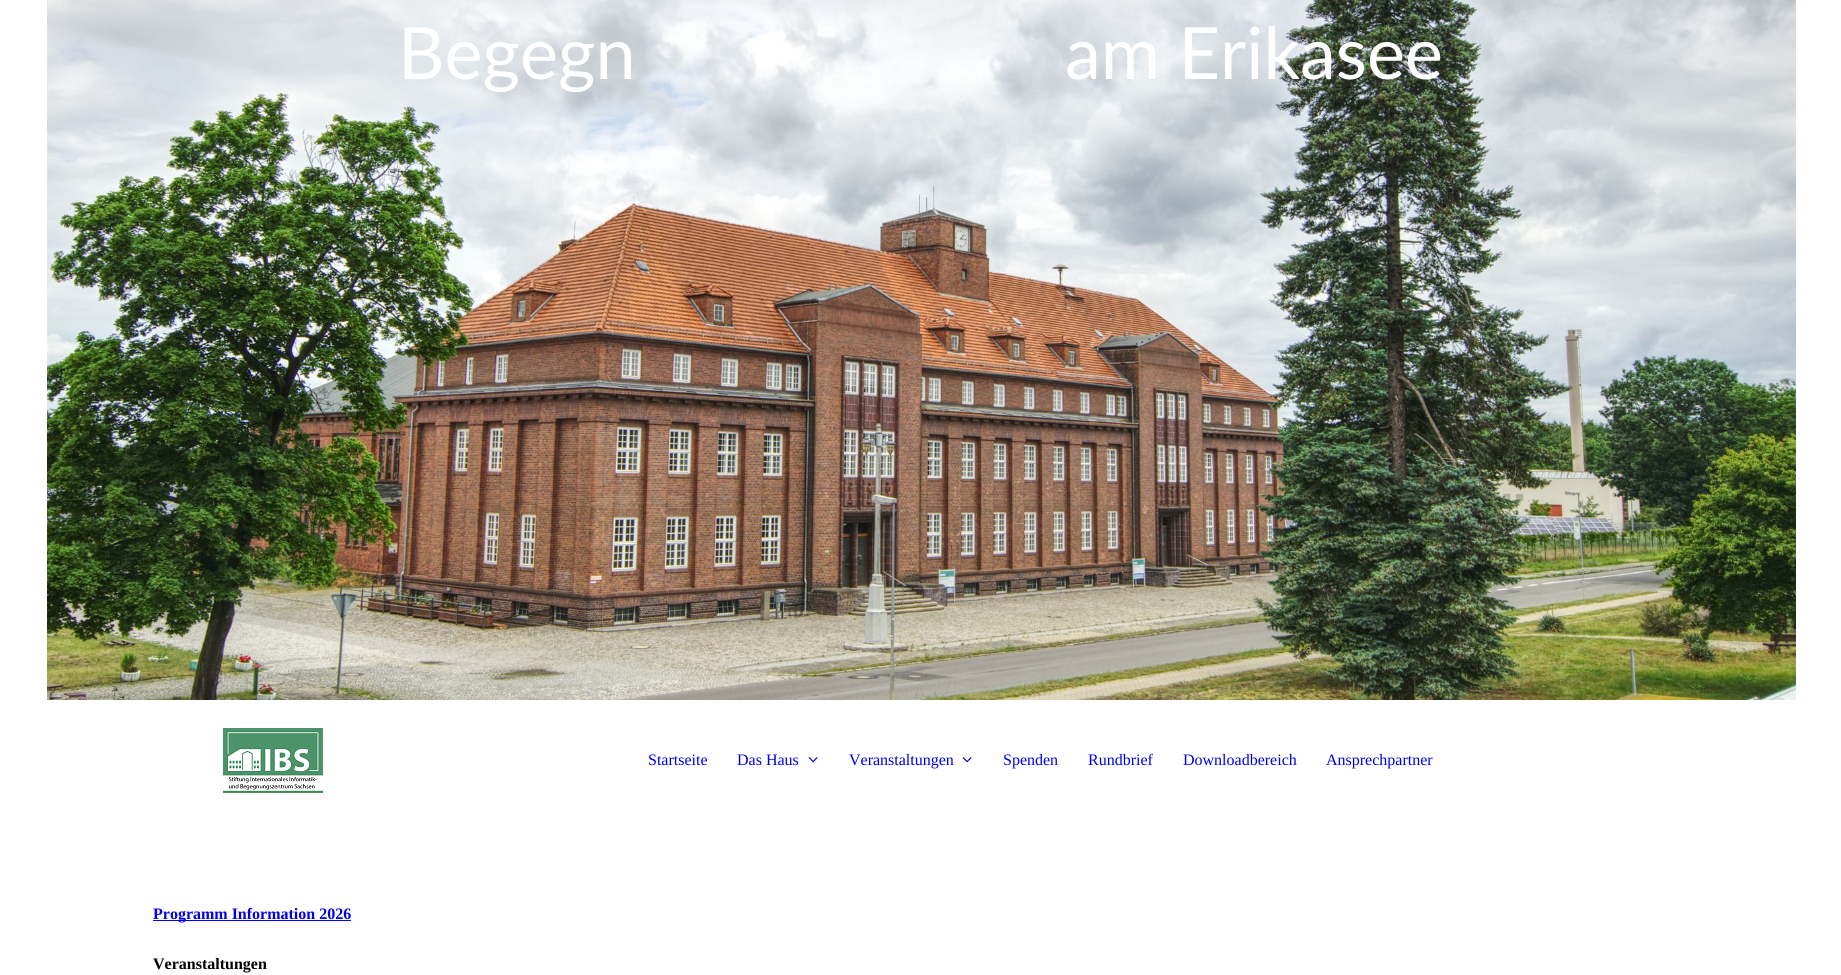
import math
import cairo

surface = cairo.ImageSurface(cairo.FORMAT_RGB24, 1841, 975)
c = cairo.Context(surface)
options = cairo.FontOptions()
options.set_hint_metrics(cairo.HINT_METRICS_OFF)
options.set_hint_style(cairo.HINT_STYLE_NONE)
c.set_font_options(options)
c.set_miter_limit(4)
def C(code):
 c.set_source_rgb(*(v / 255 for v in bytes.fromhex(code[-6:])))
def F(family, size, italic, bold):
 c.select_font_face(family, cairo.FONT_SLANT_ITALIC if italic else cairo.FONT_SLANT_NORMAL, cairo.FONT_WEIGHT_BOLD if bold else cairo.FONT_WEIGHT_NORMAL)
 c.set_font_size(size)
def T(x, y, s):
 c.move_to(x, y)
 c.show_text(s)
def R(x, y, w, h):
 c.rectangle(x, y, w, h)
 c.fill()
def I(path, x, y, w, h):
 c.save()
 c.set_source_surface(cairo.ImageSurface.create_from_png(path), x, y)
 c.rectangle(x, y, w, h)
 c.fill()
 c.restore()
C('ffffff')
c.paint()
I('1.png',47,0,1749,700)
F('Lato',72,0,0)
C('ffffff')
T(398,79,'Begegn')
T(1065,79,'am Erikasee')
I('2.png',223,728,100,65)
F('Liberation Serif',16,0,0)
C('0000ee')
T(648,765,'Startseite')
T(737,765,'Das Haus')
I('3.png',808,757,10,6)
T(849,765,'Veranstaltungen')
I('3.png',962,757,10,6)
T(1003,765,'Spenden')
T(1088,765,'Rundbrief')
T(1183,765,'Downloadbereich')
T(1326,765,'Ansprechpartner')
R(153,920,198,1)
F('Liberation Serif',16,0,1)
T(153,919,'Programm Information 2026')
C('000000')
T(153,969,'Veranstaltungen')
surface.write_to_png('o.png')
